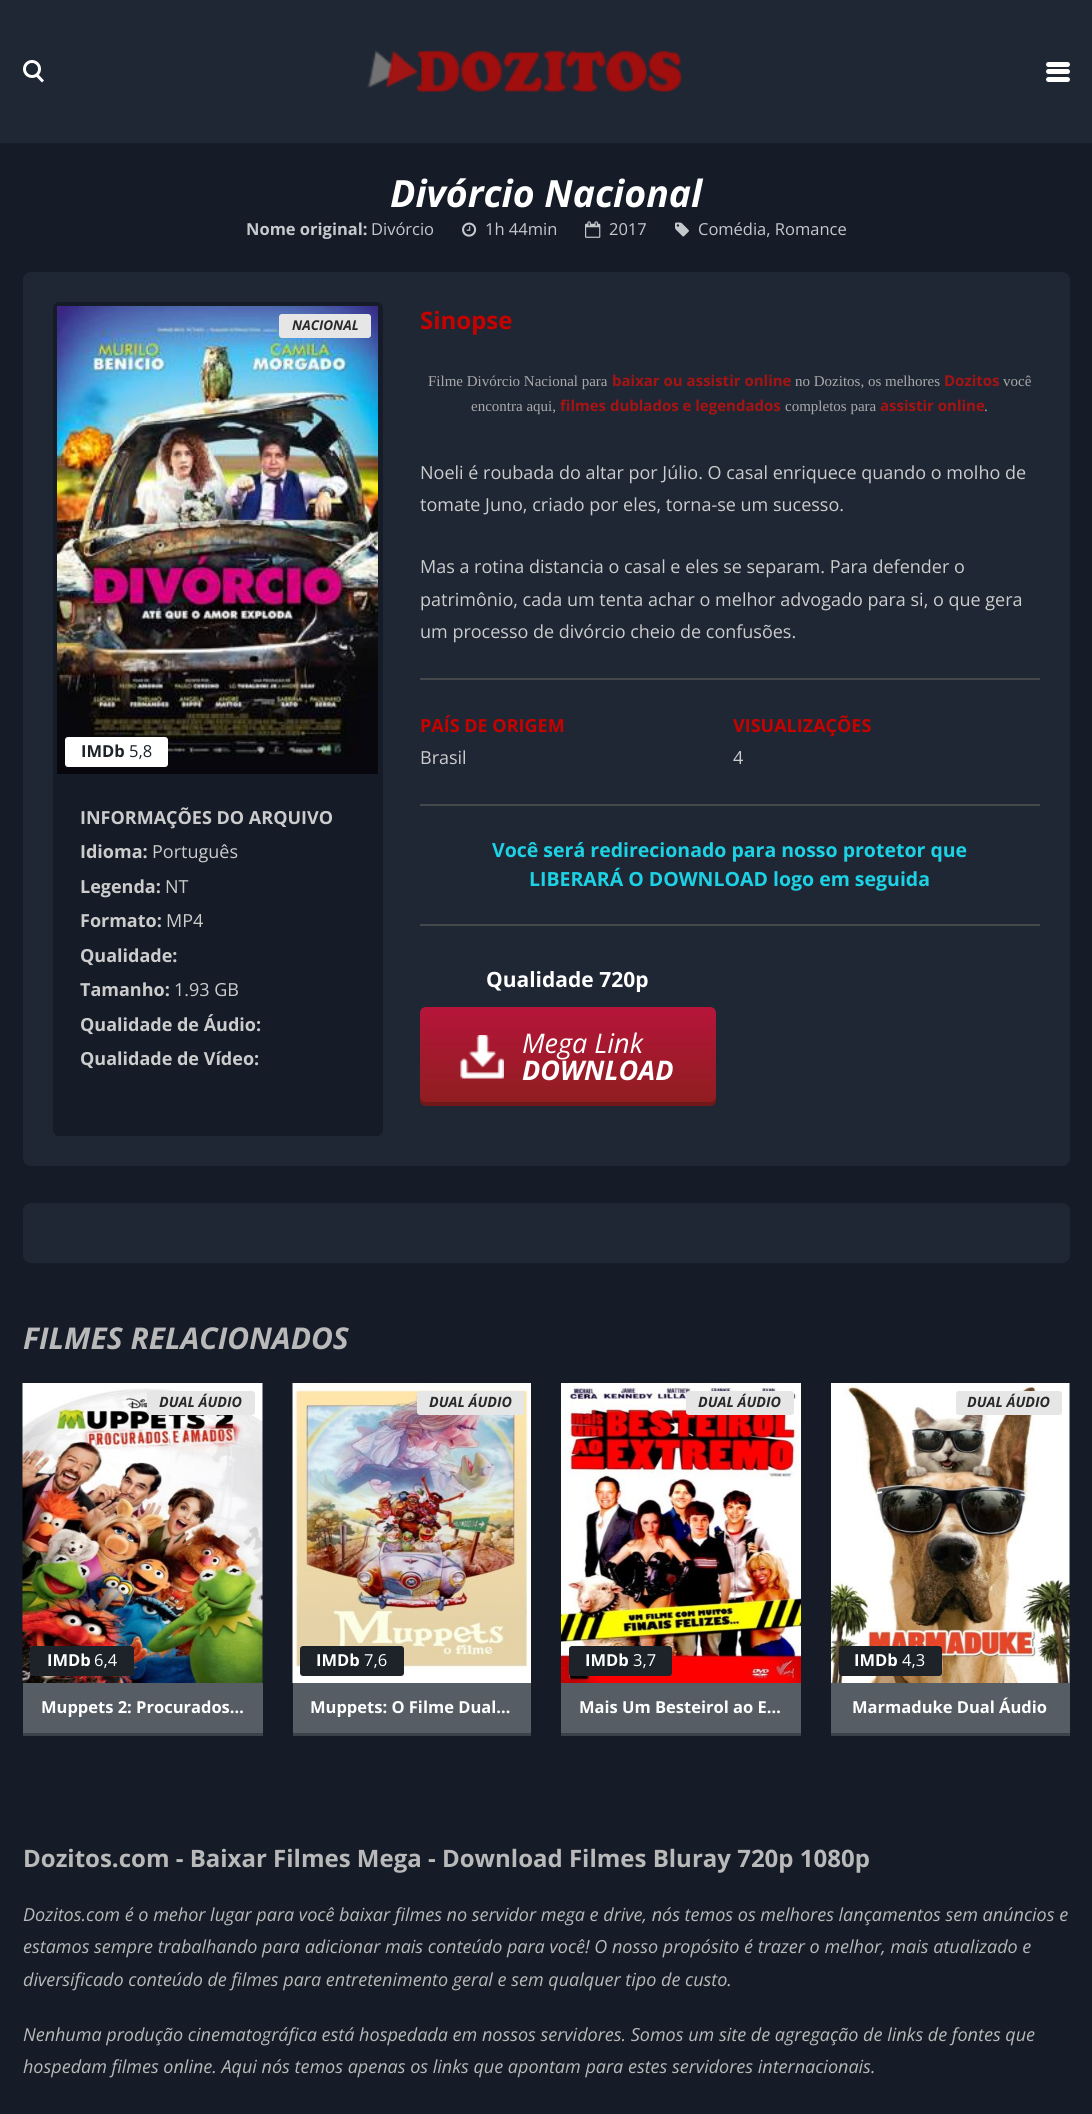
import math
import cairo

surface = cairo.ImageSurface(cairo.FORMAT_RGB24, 1092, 2114)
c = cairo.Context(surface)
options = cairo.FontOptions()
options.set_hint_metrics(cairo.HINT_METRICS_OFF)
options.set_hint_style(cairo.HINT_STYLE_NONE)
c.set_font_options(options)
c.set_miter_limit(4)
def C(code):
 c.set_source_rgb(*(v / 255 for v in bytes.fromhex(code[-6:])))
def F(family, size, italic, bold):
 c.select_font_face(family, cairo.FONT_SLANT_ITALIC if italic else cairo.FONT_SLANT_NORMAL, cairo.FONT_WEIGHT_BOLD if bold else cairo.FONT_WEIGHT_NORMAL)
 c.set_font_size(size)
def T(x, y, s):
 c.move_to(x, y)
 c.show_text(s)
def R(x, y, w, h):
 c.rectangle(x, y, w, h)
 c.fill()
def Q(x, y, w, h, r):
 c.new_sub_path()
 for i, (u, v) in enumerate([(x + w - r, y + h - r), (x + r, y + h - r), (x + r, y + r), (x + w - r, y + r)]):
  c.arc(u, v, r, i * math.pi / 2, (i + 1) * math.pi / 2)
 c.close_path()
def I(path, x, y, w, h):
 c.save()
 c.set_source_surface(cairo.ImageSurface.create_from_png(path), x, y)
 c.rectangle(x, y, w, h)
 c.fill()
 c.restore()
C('151b27')
c.paint()
C('1f2734')
R(0,0,1092,143)
c.arc(32,69,7.5,0,2 * math.pi)
C('ffffff')
c.set_line_width(3)
c.stroke()
c.new_path()
c.move_to(38,74)
c.line_to(44,80.5)
c.line_to(42,82.5)
c.line_to(35.5,76)
c.close_path()
c.fill()
I('1.png',367,50,315,42)
Q(1046,62,24,5,2.5)
c.fill()
Q(1046,69,24,5,2.5)
c.fill()
Q(1046,77,24,5,2.5)
c.fill()
F('Open Sans',37.5,1,1)
T(390,207,'Divórcio Nacional')
F('Open Sans',16.5,0,1)
C('c5c9cd')
T(246,235,'Nome original:')
F('Open Sans',16.5,0,0)
T(371,235,'Divórcio')
I('2.png',462,222,15,15)
T(485,235,'1h 44min')
I('3.png',585,221,16,17)
T(609,235,'2017')
I('4.png',675,222,14,15)
T(698,235,'Comédia, Romance')
C('1f2734')
Q(23,272,1047,894,8)
c.fill()
C('151b27')
Q(53,302,330,834,6)
c.fill()
I('5.png',57,306,321,468)
C('e6e6e6')
Q(279,314,92,24,3)
c.fill()
F('Open Sans',13.5,1,1)
C('292929')
T(292,330,'NACIONAL')
C('ffffff')
Q(65,737,103,30,3)
c.fill()
F('Open Sans',16.5,0,1)
C('1d2329')
T(81,757,'IMDb')
F('Open Sans',16.5,0,0)
T(129,757,'5,8')
F('Open Sans',18,0,1)
C('cccccc')
T(80,824,'INFORMAÇÕES DO ARQUIVO')
T(80,858,'Idioma:')
F('Open Sans',18,0,0)
T(152,858,'Português')
F('Open Sans',18,0,1)
T(80,893,'Legenda:')
F('Open Sans',18,0,0)
T(165,893,'NT')
F('Open Sans',18,0,1)
T(80,927,'Formato:')
F('Open Sans',18,0,0)
T(166,927,'MP4')
F('Open Sans',18,0,1)
T(80,962,'Qualidade:')
T(80,996,'Tamanho:')
F('Open Sans',18,0,0)
T(174,996,'1.93 GB')
F('Open Sans',18,0,1)
T(80,1031,'Qualidade de Áudio:')
T(80,1065,'Qualidade de Vídeo:')
F('Open Sans',24,0,1)
C('c60200')
T(420,329,'Sinopse')
F('Liberation Serif',15,0,0)
C('a9a9a9')
T(428,386,'Filme Divórcio Nacional para')
F('Open Sans',15,0,1)
C('a61313')
T(612,386,'baixar ou assistir online')
F('Liberation Serif',15,0,0)
C('a9a9a9')
T(795,386,'no Dozitos, os melhores')
F('Open Sans',15,0,1)
C('a61313')
T(944,386,'Dozitos')
F('Liberation Serif',15,0,0)
C('a9a9a9')
T(1003,386,'você')
T(471,411,'encontra aqui,')
F('Open Sans',15,0,1)
C('a61313')
T(560,411,'filmes dublados e legendados')
F('Liberation Serif',15,0,0)
C('a9a9a9')
T(785,411,'completos para')
F('Open Sans',15,0,1)
C('a61313')
T(880,411,'assistir online')
F('Liberation Serif',15,0,0)
C('a9a9a9')
T(984,411,'.')
C('44484a')
R(420,678,620,2)
F('Open Sans',18,0,0)
C('cccccc')
T(420,479,'Noeli é roubada do altar por Júlio. O casal enriquece quando o molho de')
T(420,511,'tomate Juno, criado por eles, torna-se um sucesso.')
T(420,573,'Mas a rotina distancia o casal e eles se separam. Para defender o')
T(420,606,'patrimônio, cada um tenta achar o melhor advogado para si, o que gera')
T(420,638,'um processo de divórcio cheio de confusões.')
C('44484a')
R(420,804,620,2)
F('Open Sans',18,0,1)
C('c60200')
T(420,732,'PAÍS DE ORIGEM')
F('Open Sans',18,0,0)
C('cccccc')
T(420,764,'Brasil')
F('Open Sans',18,0,1)
C('c60200')
T(733,732,'VISUALIZAÇÕES')
F('Open Sans',18,0,0)
C('cccccc')
T(733,764,'4')
C('44484a')
R(420,924,620,2)
F('Open Sans',19.5,0,1)
C('1cd2e4')
T(492,857,'Você será redirecionado para nosso protetor que')
T(529,886,'LIBERARÁ O DOWNLOAD logo em seguida')
F('Open Sans',21,0,1)
C('ffffff')
T(486,987,'Qualidade 720p')
gradient = cairo.LinearGradient(568,1007,568,1106)
gradient.add_color_stop_rgba(0,0.714,0.082,0.227,1)
gradient.add_color_stop_rgba(1,0.557,0.118,0.122,1)
c.set_source(gradient)
Q(420,1007,296,99,6)
c.fill()
c.set_source_rgba(0,0,0,0.2)
c.new_path()
c.move_to(420,1096)
c.line_to(420,1100)
c.curve_to(420,1103,423,1106,426,1106)
c.line_to(710,1106)
c.curve_to(713,1106,716,1103,716,1100)
c.line_to(716,1096)
c.curve_to(716,1100,713,1102,710,1102)
c.line_to(426,1102)
c.curve_to(423,1102,420,1100,420,1096)
c.close_path()
c.fill()
I('6.png',460,1035,44,44)
F('Open Sans',27,1,0)
C('ffffff')
T(522,1053,'Mega Link')
F('Open Sans',27,1,1)
T(522,1080,'DOWNLOAD')
C('1f2734')
Q(23,1203,1047,60,8)
c.fill()
F('Open Sans',30,1,1)
C('b9b9b9')
T(23,1349,'FILMES RELACIONADOS')
I('7.png',22,1383,241,300)
C('e6e6e6')
Q(147,1391,108,24,3)
c.fill()
F('Open Sans',14.25,1,1)
C('292929')
T(159,1407,'DUAL ÁUDIO')
C('1d2329')
Q(30,1646,104,30,3)
c.fill()
F('Open Sans',16.5,0,1)
C('ffffff')
T(47,1666,'IMDb')
F('Open Sans',16.5,0,0)
T(94,1666,'6,4')
C('565d64')
R(23,1683,240,50)
C('3b424a')
R(23,1733,240,3)
F('Open Sans',16.5,0,1)
C('ffffff')
T(41,1713,'Muppets 2: Procurados…')
I('8.png',292,1383,239,300)
C('e6e6e6')
Q(417,1391,107,24,3)
c.fill()
F('Open Sans',14.25,1,1)
C('292929')
T(429,1407,'DUAL ÁUDIO')
C('1d2329')
Q(300,1646,104,30,3)
c.fill()
F('Open Sans',16.5,0,1)
C('ffffff')
T(316,1666,'IMDb')
F('Open Sans',16.5,0,0)
T(364,1666,'7,6')
C('565d64')
R(293,1683,238,50)
C('3b424a')
R(293,1733,238,3)
F('Open Sans',16.5,0,1)
C('ffffff')
T(310,1713,'Muppets: O Filme Dual…')
I('9.png',561,1383,240,300)
C('e6e6e6')
Q(686,1391,108,24,3)
c.fill()
F('Open Sans',14.25,1,1)
C('292929')
T(698,1407,'DUAL ÁUDIO')
C('1d2329')
Q(569,1646,103,30,3)
c.fill()
F('Open Sans',16.5,0,1)
C('ffffff')
T(585,1666,'IMDb')
F('Open Sans',16.5,0,0)
T(633,1666,'3,7')
C('565d64')
R(561,1683,240,50)
C('3b424a')
R(561,1733,240,3)
F('Open Sans',16.5,0,1)
C('ffffff')
T(579,1713,'Mais Um Besteirol ao E…')
I('10.png',831,1383,239,300)
C('e6e6e6')
Q(956,1391,106,24,3)
c.fill()
F('Open Sans',14.25,1,1)
C('292929')
T(967,1407,'DUAL ÁUDIO')
C('1d2329')
Q(839,1646,103,30,3)
c.fill()
F('Open Sans',16.5,0,1)
C('ffffff')
T(854,1666,'IMDb')
F('Open Sans',16.5,0,0)
T(902,1666,'4,3')
C('565d64')
R(831,1683,239,50)
C('3b424a')
R(831,1733,239,3)
F('Open Sans',16.5,0,1)
C('ffffff')
T(852,1713,'Marmaduke Dual Áudio')
F('Open Sans',24,0,1)
C('b9b9b9')
T(23,1867,'Dozitos.com - Baixar Filmes Mega - Download Filmes Bluray 720p 1080p')
F('Open Sans',18,1,0)
T(23,1921,'Dozitos.com é o mehor lugar para você baixar filmes no servidor mega e drive, nós temos os melhores lançamentos sem anúncios e')
T(23,1953,'estamos sempre trabalhando para adicionar mais conteúdo para você! O nosso propósito é trazer o melhor, mais atualizado e')
T(23,1986,'diversificado conteúdo de filmes para entretenimento geral e sem qualquer tipo de custo.')
T(23,2041,'Nenhuma produção cinematográfica está hospedada em nossos servidores. Somos um site de agregação de links de fontes que')
T(23,2073,'hospedam filmes online. Aqui nós temos apenas os links que apontam para estes servidores internacionais.')
surface.write_to_png('o.png')
